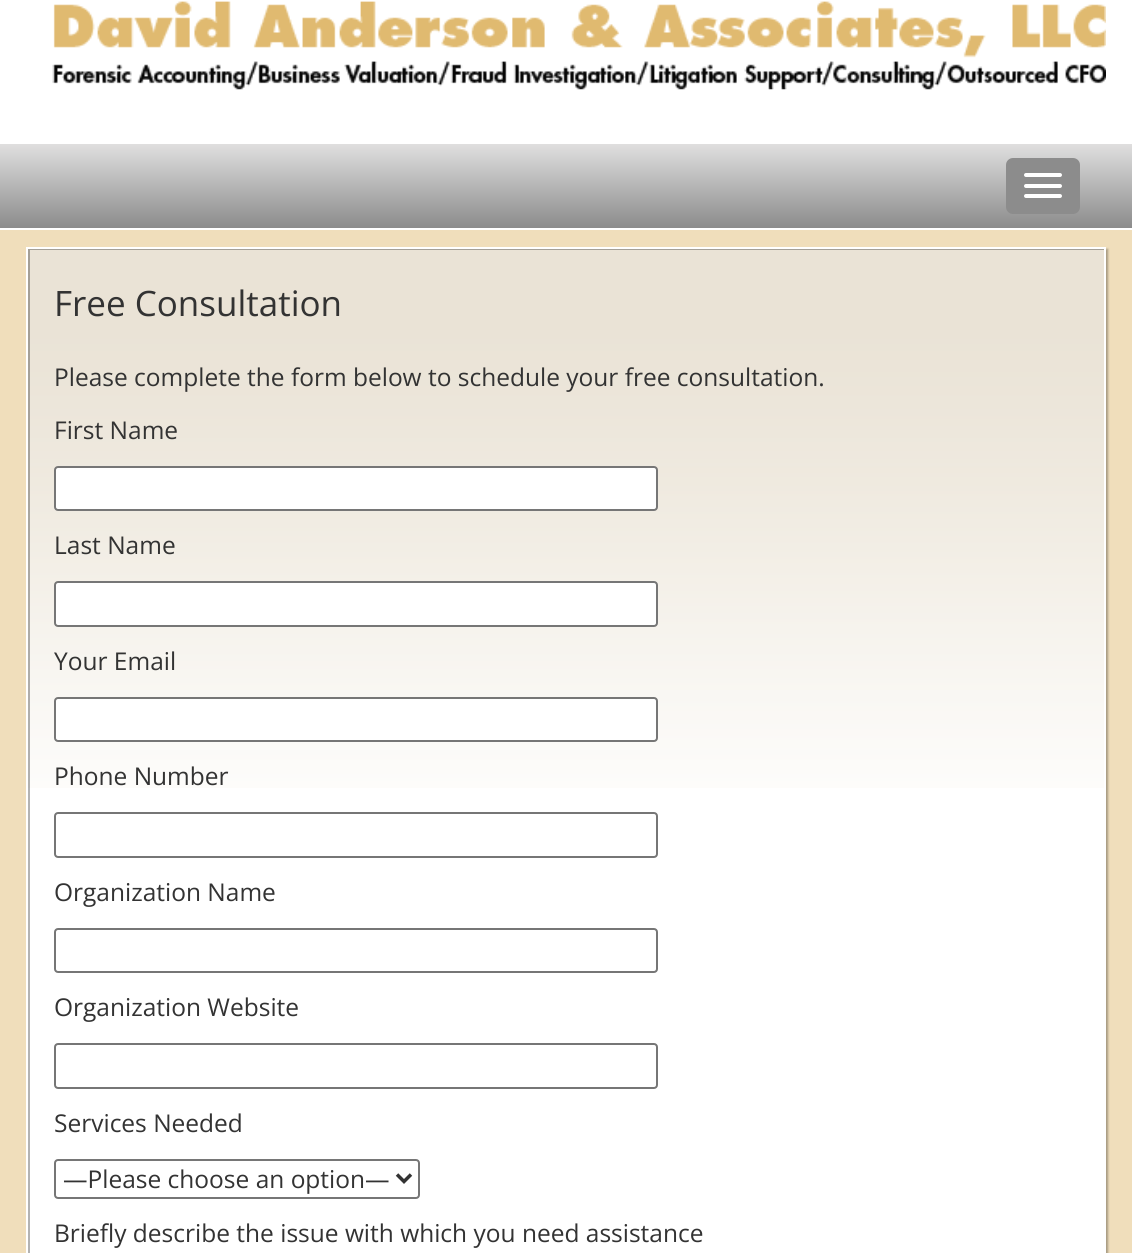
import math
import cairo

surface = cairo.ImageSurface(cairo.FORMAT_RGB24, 1132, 1253)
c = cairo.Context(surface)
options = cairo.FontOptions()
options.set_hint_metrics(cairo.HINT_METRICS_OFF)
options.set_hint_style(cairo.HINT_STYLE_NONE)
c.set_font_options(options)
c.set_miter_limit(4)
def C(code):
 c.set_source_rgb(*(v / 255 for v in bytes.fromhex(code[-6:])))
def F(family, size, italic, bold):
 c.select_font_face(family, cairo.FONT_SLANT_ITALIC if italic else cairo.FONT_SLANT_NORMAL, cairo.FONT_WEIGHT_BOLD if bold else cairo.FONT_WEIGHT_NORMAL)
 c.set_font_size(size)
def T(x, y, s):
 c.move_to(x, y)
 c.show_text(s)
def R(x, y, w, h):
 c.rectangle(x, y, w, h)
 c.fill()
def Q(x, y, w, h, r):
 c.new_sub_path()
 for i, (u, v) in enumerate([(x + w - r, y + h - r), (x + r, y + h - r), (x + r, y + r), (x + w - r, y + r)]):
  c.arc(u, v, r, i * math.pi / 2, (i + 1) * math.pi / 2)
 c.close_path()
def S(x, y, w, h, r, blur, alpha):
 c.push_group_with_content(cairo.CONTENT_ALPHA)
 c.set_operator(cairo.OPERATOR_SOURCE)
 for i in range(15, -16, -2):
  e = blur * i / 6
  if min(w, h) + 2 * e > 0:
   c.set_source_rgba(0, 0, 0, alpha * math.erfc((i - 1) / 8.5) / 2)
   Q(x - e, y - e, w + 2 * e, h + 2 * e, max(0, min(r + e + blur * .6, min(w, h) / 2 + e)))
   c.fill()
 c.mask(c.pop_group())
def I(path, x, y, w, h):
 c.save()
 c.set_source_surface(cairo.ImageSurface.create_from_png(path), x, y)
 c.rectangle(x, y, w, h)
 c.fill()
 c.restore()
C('f0debb')
c.paint()
C('ffffff')
R(0,0,1132,144)
I('1.png',52,1,1054,89)
gradient = cairo.LinearGradient(566,143,566,228)
gradient.add_color_stop_rgba(0,0.882,0.878,0.878,1)
gradient.add_color_stop_rgba(1,0.549,0.549,0.549,1)
c.set_source(gradient)
R(0,144,1132,84)
C('ffffff')
R(0,228,1132,2)
C('8c8c8c')
Q(1006,158,74,56,7)
c.fill()
C('ffffff')
Q(1024,173,38,4,2)
c.fill()
Q(1024,184,38,4,2)
c.fill()
Q(1024,194,38,4,2)
c.fill()
C('000000')
S(28,249,1080,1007,0,1,.3)
C('ffffff')
R(28,788,1076,465)
I('2.png',28,249,1076,539)
c.save()
c.rectangle(28,249,1076,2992)
c.clip()
c.set_source_rgba(0,0,0,0.3)
c.set_fill_rule(cairo.FILL_RULE_EVEN_ODD)
c.new_path()
c.move_to(-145,75)
c.line_to(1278,75)
c.line_to(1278,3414)
c.line_to(-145,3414)
c.close_path()
c.move_to(30,250)
c.line_to(1106,250)
c.line_to(1106,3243)
c.line_to(30,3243)
c.close_path()
c.fill()
c.restore()
c.rectangle(27,248,1078,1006)
c.stroke()
F('Open Sans',35,0,0)
C('333333')
T(54,316,'Free Consultation')
F('Open Sans',24.5,0,0)
T(54,386,'Please complete the form below to schedule your free consultation.')
T(54,439,'First Name')
C('ffffff')
Q(55,467,602,43,3)
c.fill_preserve()
C('767676')
c.stroke()
C('333333')
T(54,554,'Last Name')
C('ffffff')
Q(55,582,602,44,3)
c.fill_preserve()
C('767676')
c.stroke()
C('333333')
T(54,670,'Your Email')
C('ffffff')
Q(55,698,602,43,3)
c.fill_preserve()
C('767676')
c.stroke()
C('333333')
T(54,785,'Phone Number')
Q(55,813,602,44,3)
C('767676')
c.stroke()
C('333333')
T(54,901,'Organization Name')
Q(55,929,602,43,3)
C('767676')
c.stroke()
C('333333')
T(54,1016,'Organization Website')
Q(55,1044,602,44,3)
C('767676')
c.stroke()
C('333333')
T(54,1132,'Services Needed')
Q(55,1160,364,38,3)
C('767676')
c.stroke()
c.new_path()
c.move_to(397,1174.5)
c.line_to(404,1181.5)
c.line_to(411,1174.5)
C('333333')
c.set_line_width(3.5)
c.stroke()
T(63,1188,'—Please choose an option—')
T(54,1242,'Briefly describe the issue with which you need assistance')
surface.write_to_png('o.png')
